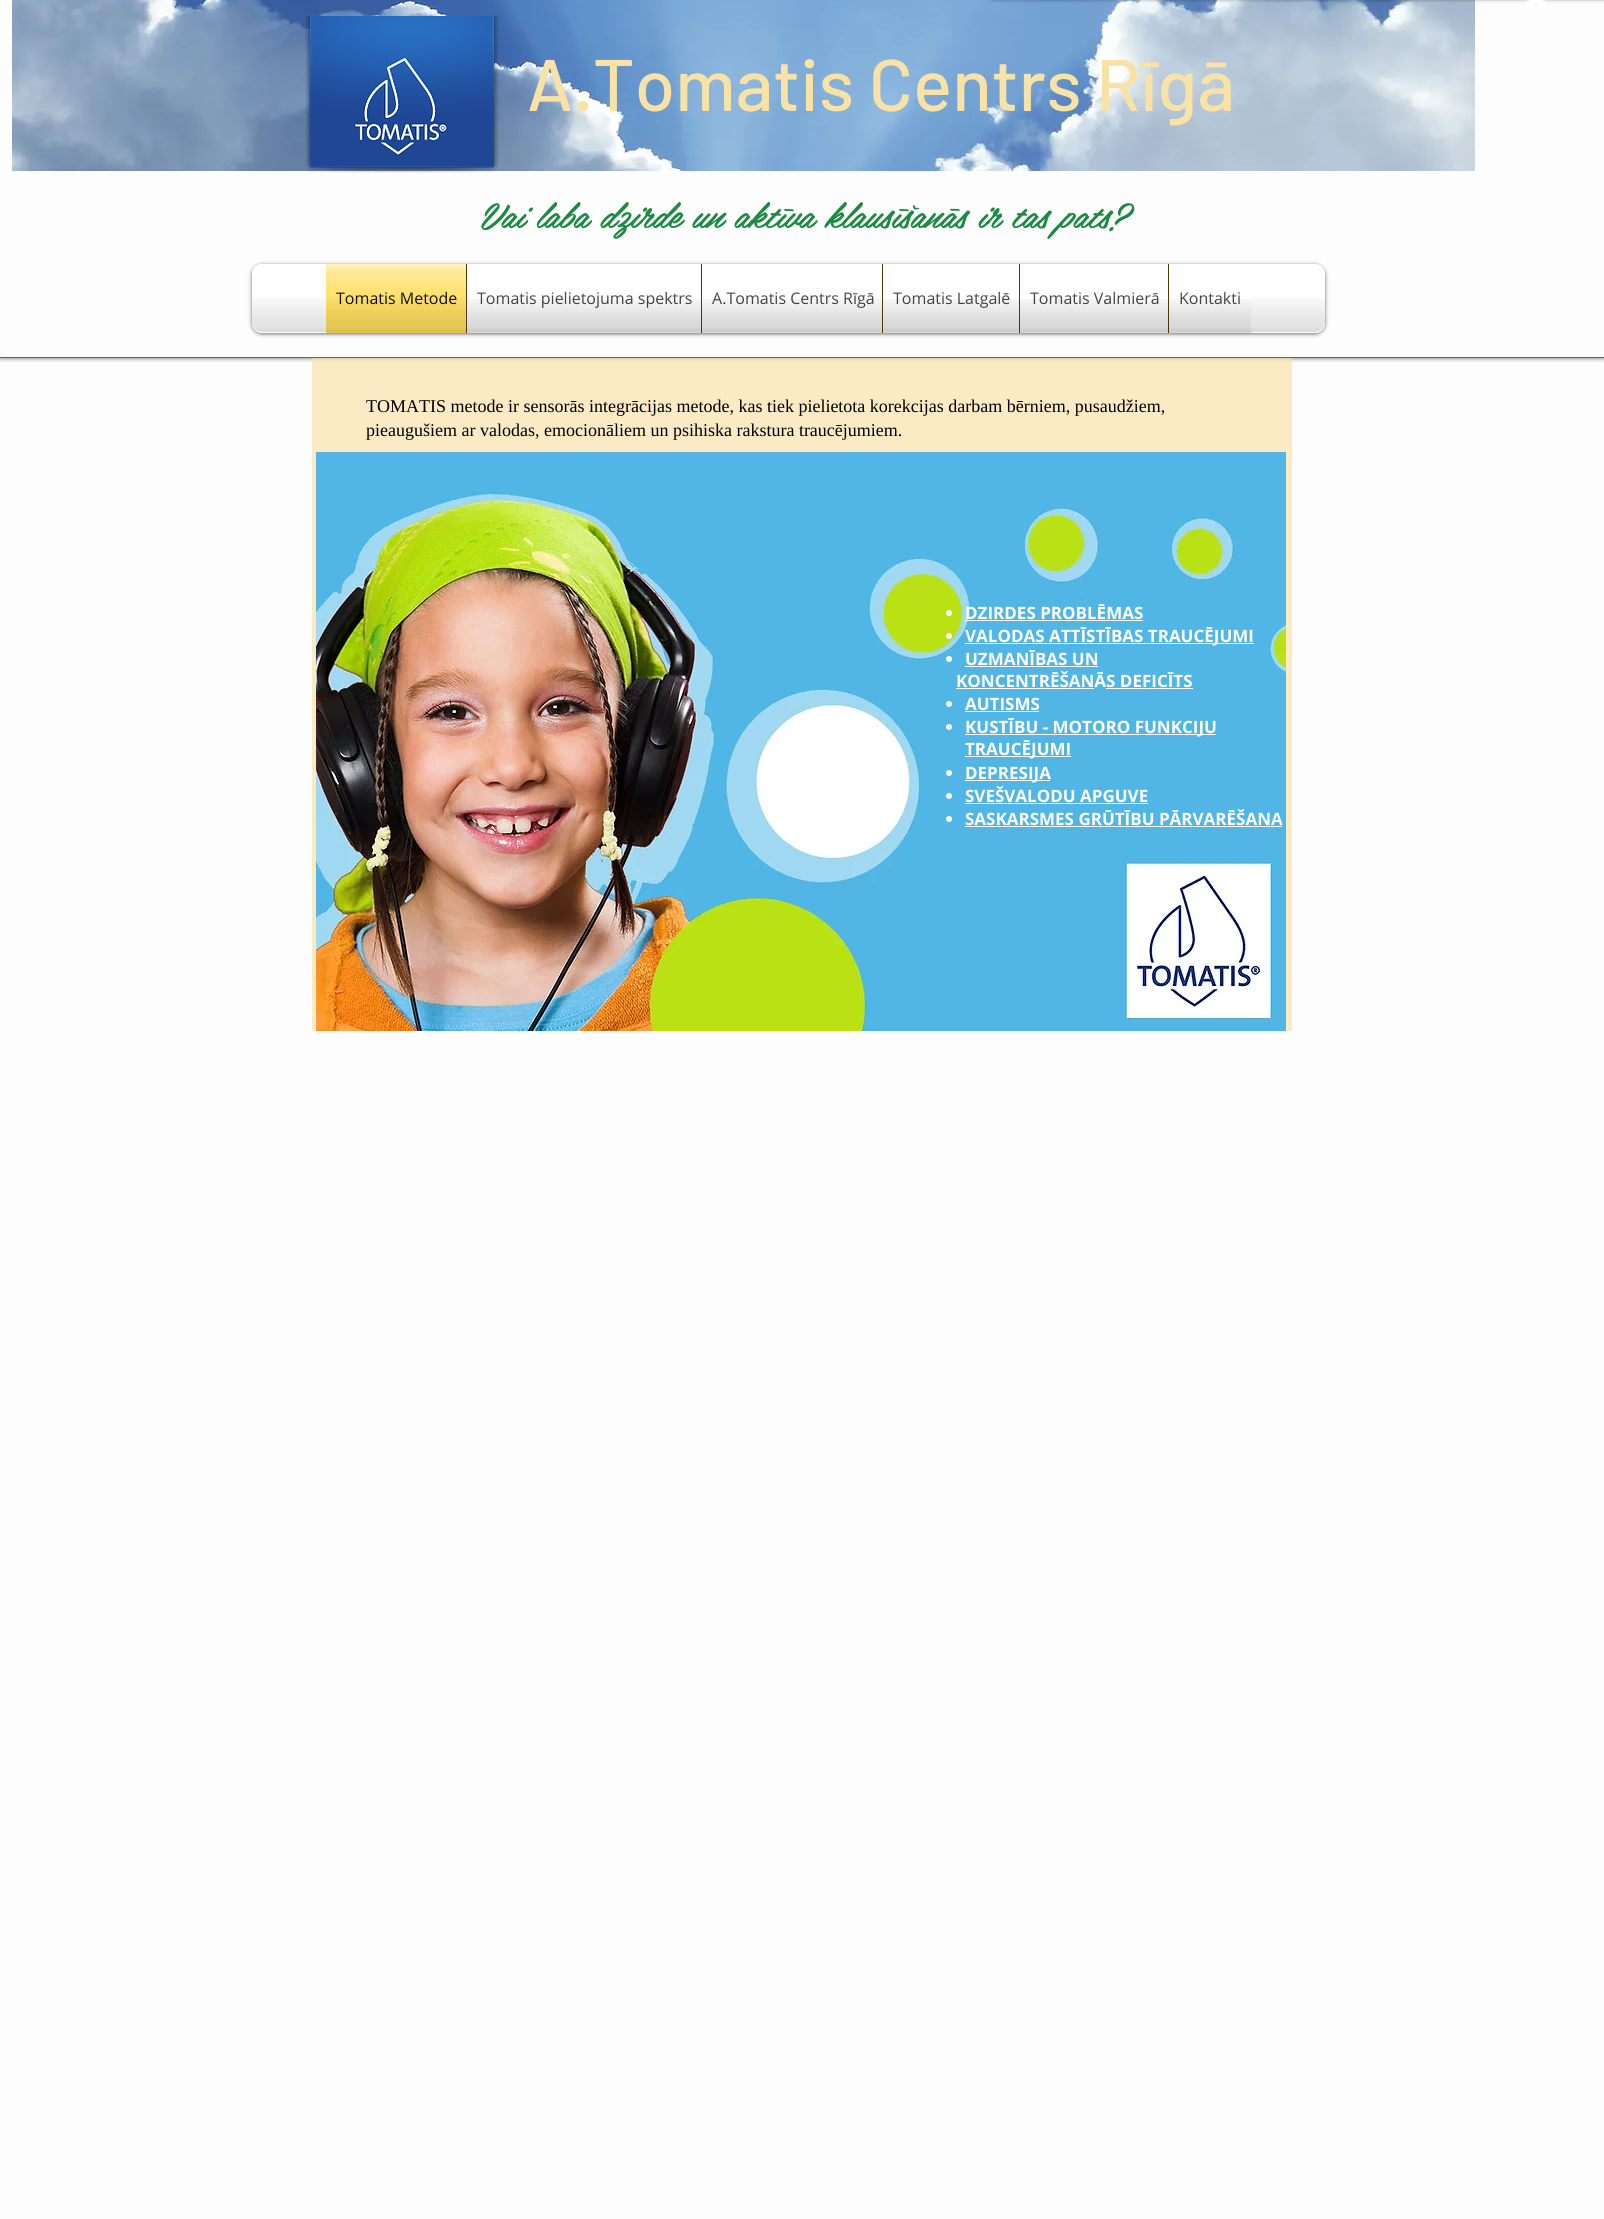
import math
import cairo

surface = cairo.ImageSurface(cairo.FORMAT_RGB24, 1604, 2219)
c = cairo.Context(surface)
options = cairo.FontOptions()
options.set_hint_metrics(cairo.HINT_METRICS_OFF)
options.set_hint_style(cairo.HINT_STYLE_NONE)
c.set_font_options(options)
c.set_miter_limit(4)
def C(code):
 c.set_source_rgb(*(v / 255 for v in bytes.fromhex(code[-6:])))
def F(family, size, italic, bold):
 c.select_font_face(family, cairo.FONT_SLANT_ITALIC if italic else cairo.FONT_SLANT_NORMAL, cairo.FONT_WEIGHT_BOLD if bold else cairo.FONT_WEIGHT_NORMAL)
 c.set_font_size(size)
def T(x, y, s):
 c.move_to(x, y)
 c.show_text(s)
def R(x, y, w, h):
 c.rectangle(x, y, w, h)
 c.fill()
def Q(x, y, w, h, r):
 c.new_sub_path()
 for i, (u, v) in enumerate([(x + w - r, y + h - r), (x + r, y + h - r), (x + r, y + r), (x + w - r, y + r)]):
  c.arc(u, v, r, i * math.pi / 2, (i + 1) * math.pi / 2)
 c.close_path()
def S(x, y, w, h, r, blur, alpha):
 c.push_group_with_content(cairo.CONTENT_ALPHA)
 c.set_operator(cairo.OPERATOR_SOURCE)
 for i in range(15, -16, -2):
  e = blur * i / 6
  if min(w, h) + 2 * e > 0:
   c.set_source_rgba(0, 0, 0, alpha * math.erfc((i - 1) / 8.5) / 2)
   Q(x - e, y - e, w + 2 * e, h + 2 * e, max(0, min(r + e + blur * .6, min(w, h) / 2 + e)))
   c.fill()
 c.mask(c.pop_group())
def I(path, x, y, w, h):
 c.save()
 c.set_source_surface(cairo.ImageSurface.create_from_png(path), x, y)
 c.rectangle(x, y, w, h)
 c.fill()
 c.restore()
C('fefdfd')
c.paint()
c.save()
c.rectangle(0,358,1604,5)
c.clip()
C('000000')
S(0,0,1604,358,0,2.5,.6)
c.restore()
I('2.png',12,0,1463,171)
C('000000')
S(987,-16,133,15,10,2,.6)
S(1130,-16,221,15,10,2,.6)
S(1361,-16,170,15,10,2,.6)
S(1541,-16,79,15,10,2,.6)
I('1.png',305,16,194,157)
C('666565')
R(0,357,1604,1)
F('Barlow Medium',73,0,0)
C('f9e2a6')
T(527,111,'A.Tomatis Centrs Rīgā')
F('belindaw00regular',35,1,0)
C('1c8a43')
T(480,228,'Vai laba dzirde un aktīva klausīšanās ir tas pats?')
c.save()
c.set_fill_rule(cairo.FILL_RULE_EVEN_ODD)
c.new_path()
c.move_to(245,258)
c.line_to(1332,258)
c.line_to(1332,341)
c.line_to(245,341)
c.close_path()
c.move_to(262,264)
c.line_to(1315,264)
c.curve_to(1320.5,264,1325,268.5,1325,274)
c.line_to(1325,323)
c.curve_to(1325,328.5,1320.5,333,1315,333)
c.line_to(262,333)
c.curve_to(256.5,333,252,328.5,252,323)
c.line_to(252,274)
c.curve_to(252,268.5,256.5,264,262,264)
c.close_path()
c.clip()
C('000000')
S(252,265,1073,69,10,2,.6)
c.restore()
c.set_source_rgba(1,1,1,0.54)
Q(252,264,1073,69,10)
c.fill()
C('ececec')
R(1318,264,1,1)
I('3.png',252,298,1073,34)
C('ffde5f')
R(326,264,140,69)
F('Open Sans',16,0,0)
C('000000')
T(336,304,'Tomatis Metode')
I('4.png',326,264,140,45)
I('5.png',326,299,140,34)
c.set_source_rgba(1,1,1,0.54)
R(467,298,234,34)
C('4f3900')
R(466,264,1,69)
C('383838')
T(477,304,'Tomatis pielietojuma spektrs')
I('6.png',477,292,215,16)
I('7.png',467,299,234,34)
c.set_source_rgba(1,1,1,0.54)
R(702,298,180,34)
C('4f3900')
R(701,264,1,69)
C('383838')
T(712,304,'A.Tomatis Centrs Rīgā')
I('8.png',712,292,162,16)
I('9.png',702,299,180,34)
c.set_source_rgba(1,1,1,0.54)
R(883,298,136,34)
C('4f3900')
R(882,264,1,69)
C('383838')
T(893,304,'Tomatis Latgalē')
I('10.png',893,292,117,16)
I('11.png',883,299,136,34)
c.set_source_rgba(1,1,1,0.54)
R(1020,298,148,34)
C('4f3900')
R(1019,264,1,69)
C('383838')
T(1030,304,'Tomatis Valmierā')
I('12.png',1030,292,129,12)
I('13.png',1020,299,148,34)
c.set_source_rgba(1,1,1,0.54)
R(1169,298,82,34)
C('4f3900')
R(1168,264,1,69)
C('383838')
T(1179,304,'Kontakti')
I('14.png',1180,292,60,12)
I('15.png',1169,299,82,34)
c.set_source_rgba(0.976,0.886,0.651,0.65)
R(312,358,980,673)
F('Liberation Serif',18,0,0)
C('000000')
T(366,412,'TOMATIS metode ir sensorās integrācijas metode, kas tiek pielietota korekcijas darbam bērniem, pusaudžiem,')
T(366,436,'pieaugušiem ar valodas, emocionāliem un psihiska rakstura traucējumiem.')
I('16.png',316,452,970,579)
C('fefdfd')
c.arc(949,613,3,0,2 * math.pi)
c.fill()
F('Open Sans',17,0,1)
T(965,619,'DZIRDES PROBLĒMAS')
R(965,620,178,1)
c.new_path()
c.arc(949,636,3,0,2 * math.pi)
c.fill()
R(965,643,289,1)
T(965,642,'VALODAS ATTĪSTĪBAS TRAUCĒJUMI')
c.new_path()
c.arc(949,659,3,0,2 * math.pi)
c.fill()
T(965,665,'UZMANĪBAS UN')
R(965,666,133,1)
T(956,687,'KONCENTRĒŠANĀS DEFICĪTS')
R(956,688,138,1)
R(1106,688,87,1)
c.new_path()
c.arc(949,704,3,0,2 * math.pi)
c.fill()
T(965,710,'AUTISMS')
R(965,711,74,1)
c.new_path()
c.arc(949,727,3,0,2 * math.pi)
c.fill()
R(965,734,251,1)
T(965,733,'KUSTĪBU - MOTORO FUNKCIJU')
R(965,756,106,1)
T(965,755,'TRAUCĒJUMI')
c.new_path()
c.arc(949,773,3,0,2 * math.pi)
c.fill()
R(965,780,85,1)
T(965,779,'DEPRESIJA')
c.new_path()
c.arc(949,796,3,0,2 * math.pi)
c.fill()
T(965,802,'SVEŠVALODU APGUVE')
R(965,803,183,1)
c.new_path()
c.arc(949,819,3,0,2 * math.pi)
c.fill()
T(965,825,'SASKARSMES GRŪTĪBU PĀRVARĒŠANA')
R(965,826,317,1)
surface.write_to_png('o.png')
